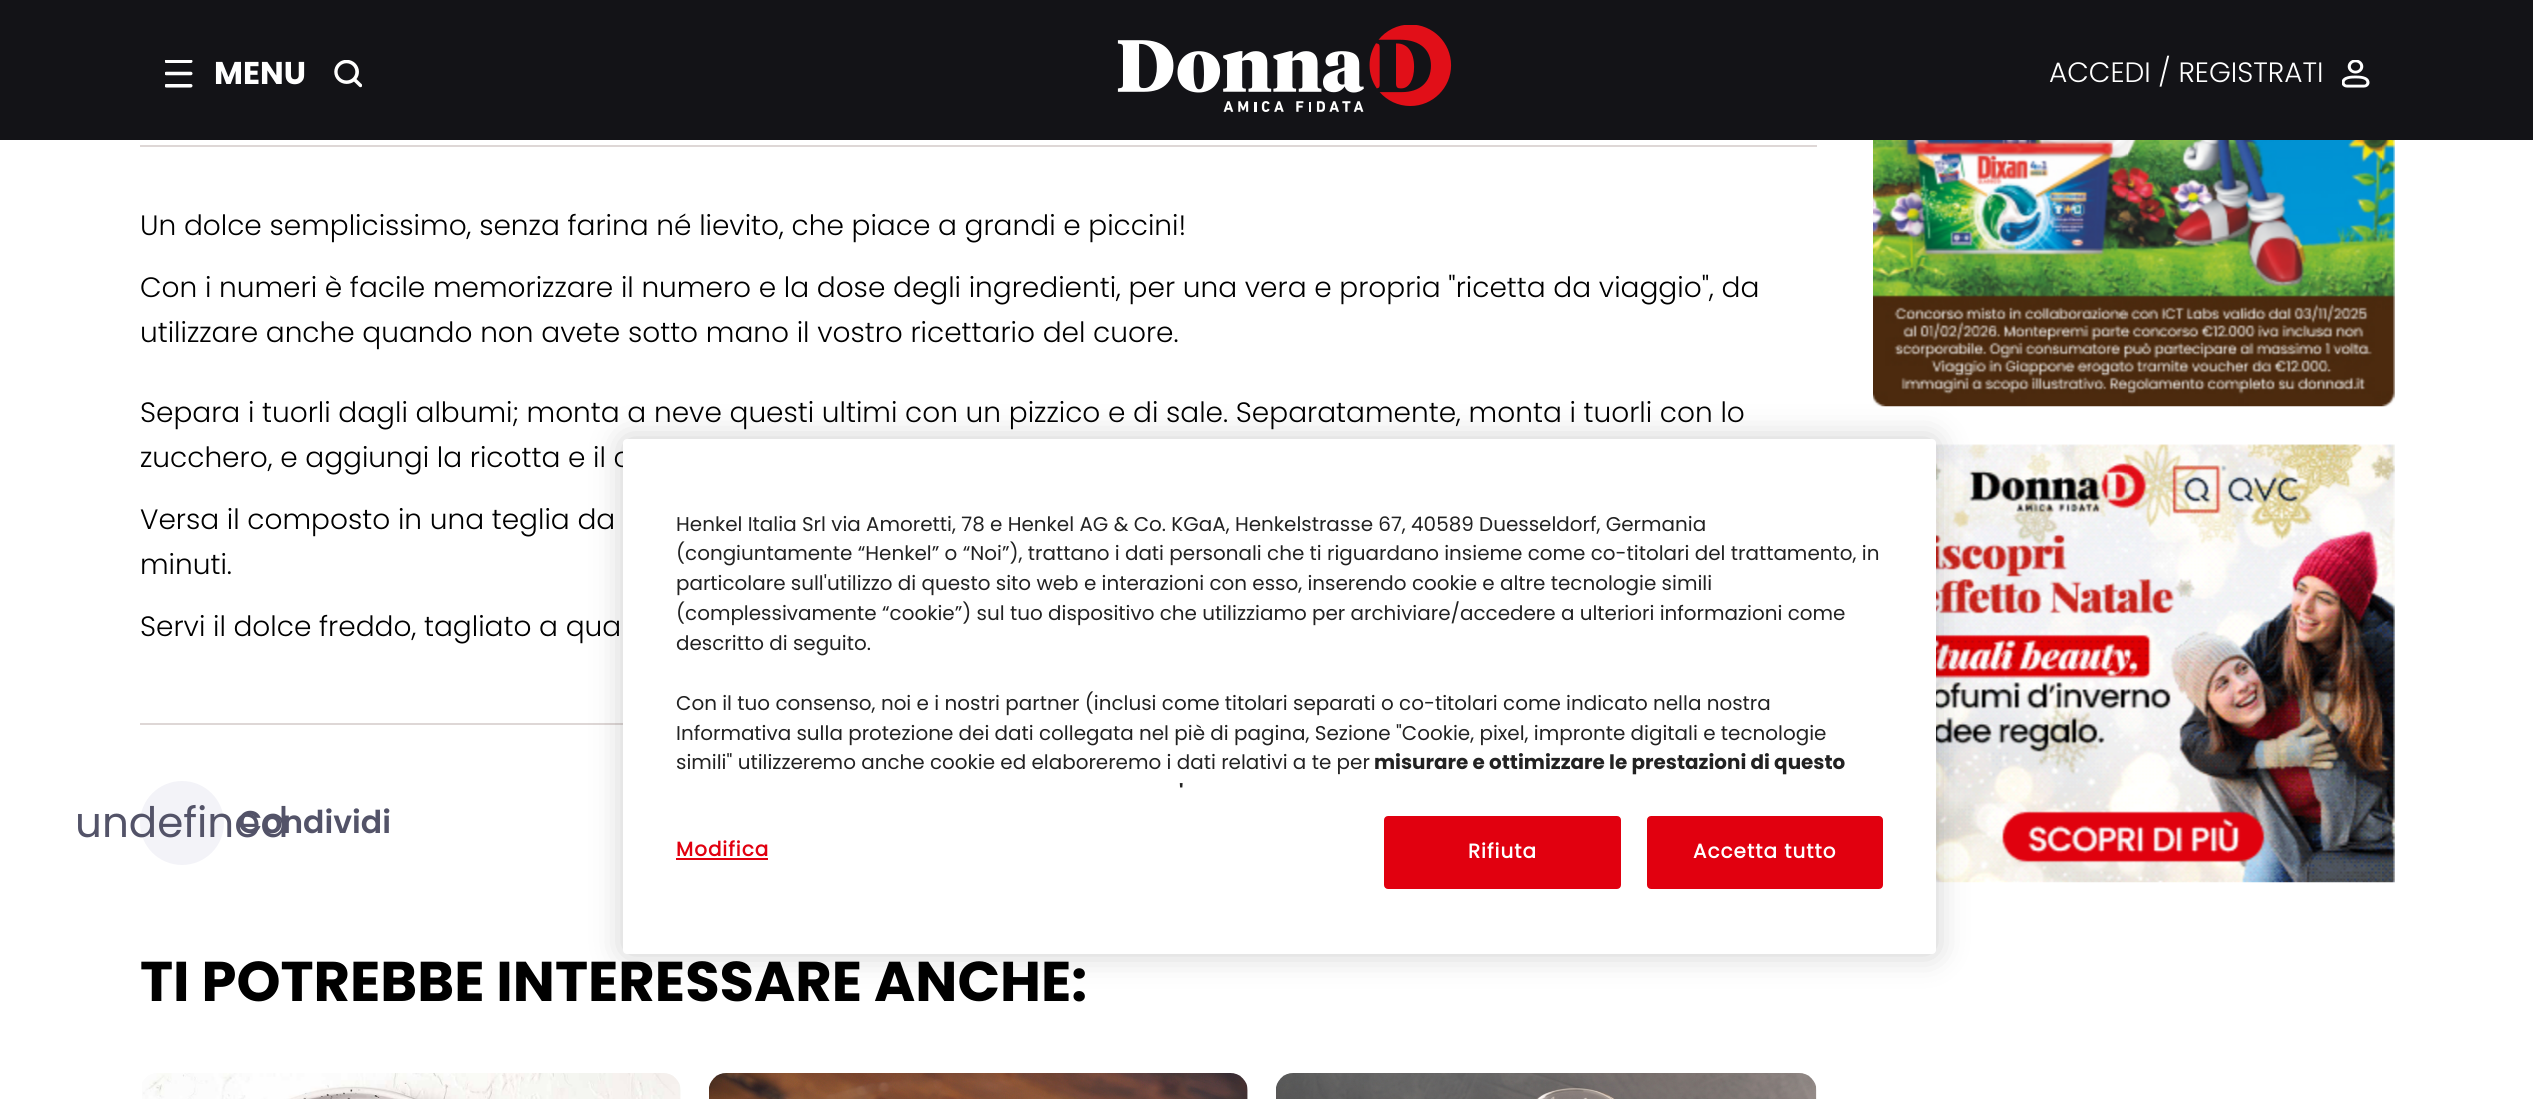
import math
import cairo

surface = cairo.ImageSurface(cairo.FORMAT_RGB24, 2533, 1099)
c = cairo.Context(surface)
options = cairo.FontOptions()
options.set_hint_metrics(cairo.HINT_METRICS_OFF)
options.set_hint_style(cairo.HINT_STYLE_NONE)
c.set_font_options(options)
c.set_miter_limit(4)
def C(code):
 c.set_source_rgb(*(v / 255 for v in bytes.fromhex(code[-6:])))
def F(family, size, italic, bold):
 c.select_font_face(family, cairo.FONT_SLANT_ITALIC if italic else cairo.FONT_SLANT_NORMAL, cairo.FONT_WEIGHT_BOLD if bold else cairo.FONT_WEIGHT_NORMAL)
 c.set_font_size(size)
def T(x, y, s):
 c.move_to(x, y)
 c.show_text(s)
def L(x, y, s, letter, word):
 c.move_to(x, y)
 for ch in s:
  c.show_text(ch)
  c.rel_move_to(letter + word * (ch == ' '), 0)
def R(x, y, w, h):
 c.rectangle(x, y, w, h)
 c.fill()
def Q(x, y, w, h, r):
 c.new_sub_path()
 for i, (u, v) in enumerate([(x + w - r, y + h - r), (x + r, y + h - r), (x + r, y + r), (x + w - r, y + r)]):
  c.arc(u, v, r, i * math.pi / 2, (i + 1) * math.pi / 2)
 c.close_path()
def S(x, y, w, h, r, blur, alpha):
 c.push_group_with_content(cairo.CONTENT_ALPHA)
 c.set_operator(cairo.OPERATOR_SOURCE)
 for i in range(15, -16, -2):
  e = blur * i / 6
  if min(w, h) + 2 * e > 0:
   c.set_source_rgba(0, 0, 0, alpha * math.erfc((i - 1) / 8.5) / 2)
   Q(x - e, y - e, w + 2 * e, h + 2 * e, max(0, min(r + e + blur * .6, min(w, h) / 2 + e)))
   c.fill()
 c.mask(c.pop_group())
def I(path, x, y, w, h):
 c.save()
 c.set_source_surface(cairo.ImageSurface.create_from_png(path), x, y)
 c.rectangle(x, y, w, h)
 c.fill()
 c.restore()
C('ffffff')
c.paint()
C('131317')
R(0,0,2533,140)
I('1.png',165,60,28,28)
F('Poppins',31.5,0,1)
C('ffffff')
T(214,84,'MENU')
I('2.png',334,60,28,28)
I('3.png',1117,25,335,87)
F('Poppins Light',28,0,0)
T(2049,82,'ACCEDI / REGISTRATI')
I('4.png',2342,60,28,28)
C('ded7d6')
R(140,145,1677,2)
C('000000')
T(140,235,'Un dolce semplicissimo, senza farina né lievito, che piace a grandi e piccini!')
T(140,297,'Con i numeri è facile memorizzare il numero e la dose degli ingredienti, per una vera e propria "ricetta da viaggio", da')
T(140,342,'utilizzare anche quando non avete sotto mano il vostro ricettario del cuore.')
T(140,422,'Separa i tuorli dagli albumi; monta a neve questi ultimi con un pizzico e di sale. Separatamente, monta i tuorli con lo')
T(140,467,'zucchero, e aggiungi la ricotta e il c')
T(140,529,'Versa il composto in una teglia da')
T(140,574,'minuti.')
T(140,636,'Servi il dolce freddo, tagliato a qua')
C('ded7d6')
R(140,723,483,2)
C('f3f3f8')
c.new_path()
c.arc(182,823,42,0,2 * math.pi)
c.fill()
F('Poppins',42,0,0)
C('535368')
T(75,837,'undefined')
F('Poppins SemiBold',31.5,0,0)
T(238,833,'Condividi')
I('5.png',1873,140,522,267)
I('6.png',1936,444,459,439)
F('Poppins',56,0,1)
C('000000')
T(140,1001,'TI POTREBBE INTERESSARE ANCHE:')
I('7.png',142,1073,539,26)
I('8.png',709,1073,539,26)
I('9.png',1276,1073,541,26)
C('000000')
S(623,439,1313,515,4,16,.2)
C('ffffff')
Q(623,439,1313,515,4)
c.fill()
F('Poppins',19.92,0,0)
C('222222')
T(676,531,'Henkel Italia Srl via Amoretti, 78 e Henkel AG & Co. KGaA, Henkelstrasse 67, 40589 Duesseldorf, Germania')
T(676,560,'(congiuntamente “Henkel” o “Noi”), trattano i dati personali che ti riguardano insieme come co-titolari del trattamento, in')
T(676,590,'particolare sull\'utilizzo di questo sito web e interazioni con esso, inserendo cookie e altre tecnologie simili')
T(676,620,'(complessivamente “cookie”) sul tuo dispositivo che utilizziamo per archiviare/accedere a ulteriori informazioni come')
T(676,650,'descritto di seguito.')
T(676,710,'Con il tuo consenso, noi e i nostri partner (inclusi come titolari separati o co-titolari come indicato nella nostra')
T(676,740,'Informativa sulla protezione dei dati collegata nel piè di pagina, Sezione "Cookie, pixel, impronte digitali e tecnologie')
T(676,769,'simili" utilizzeremo anche cookie ed elaboreremo i dati relativi a te per')
F('Poppins',19.92,0,1)
T(1374,769,'misurare e ottimizzare le prestazioni di questo')
T(1179,799,'\'')
F('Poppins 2',19.92,0,1)
C('e1000f')
L(676,856,'Modifica',1,0)
R(676,858,92,2)
Q(1385,817,235,71,3)
c.fill_preserve()
c.stroke()
C('ffffff')
L(1468,858,'Rifiuta',1,0)
C('e1000f')
Q(1648,817,234,71,3)
c.fill_preserve()
c.stroke()
C('ffffff')
L(1693,858,'Accetta tutto',1,0)
surface.write_to_png('o.png')
